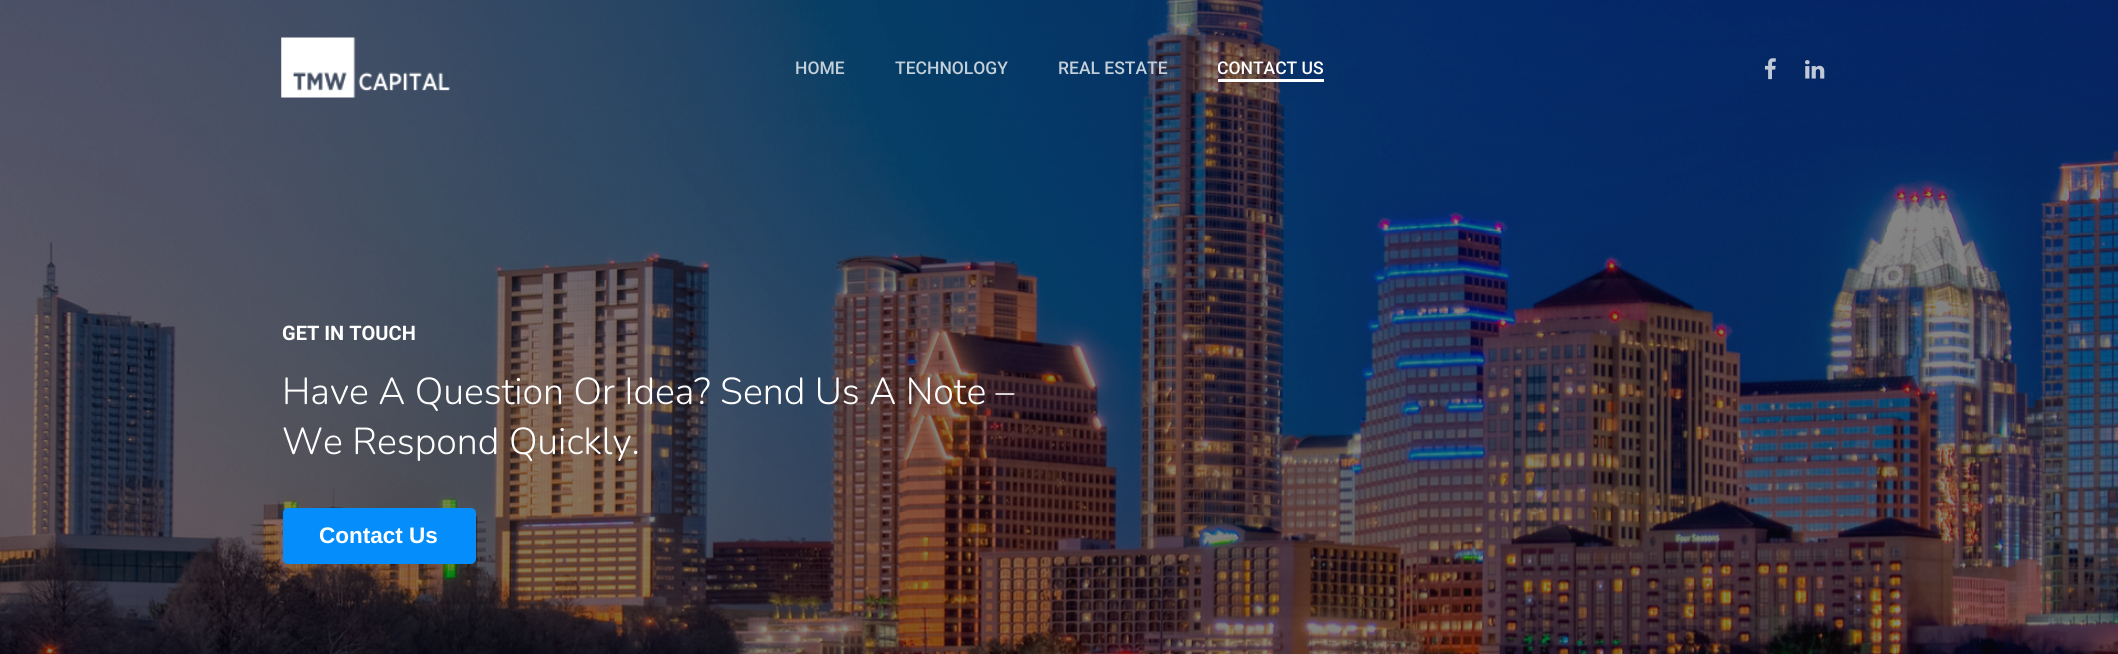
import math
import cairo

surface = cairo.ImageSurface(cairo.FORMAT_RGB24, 2118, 654)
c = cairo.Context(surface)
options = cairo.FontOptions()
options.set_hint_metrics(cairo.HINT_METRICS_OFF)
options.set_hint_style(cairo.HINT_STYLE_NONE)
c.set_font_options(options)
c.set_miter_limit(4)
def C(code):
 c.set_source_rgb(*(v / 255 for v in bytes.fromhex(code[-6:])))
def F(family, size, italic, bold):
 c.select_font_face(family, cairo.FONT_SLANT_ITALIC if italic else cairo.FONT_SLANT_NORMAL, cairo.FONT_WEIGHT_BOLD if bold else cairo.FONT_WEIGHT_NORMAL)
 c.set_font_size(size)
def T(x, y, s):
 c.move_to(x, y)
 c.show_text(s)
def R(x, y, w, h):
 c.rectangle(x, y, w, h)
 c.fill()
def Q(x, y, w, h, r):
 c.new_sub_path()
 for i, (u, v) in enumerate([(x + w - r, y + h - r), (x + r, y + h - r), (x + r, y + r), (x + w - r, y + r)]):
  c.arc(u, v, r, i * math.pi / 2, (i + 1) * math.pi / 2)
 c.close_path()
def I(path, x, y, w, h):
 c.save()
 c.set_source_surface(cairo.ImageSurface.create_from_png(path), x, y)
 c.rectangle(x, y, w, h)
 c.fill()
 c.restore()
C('ffffff')
c.paint()
I('4.png',0,0,2118,654)
I('1.png',281,37,169,61)
F('Roboto Medium',17.5,0,0)
C('c3cfd9')
T(795,74,'HOME')
T(895,74,'TECHNOLOGY')
T(1058,74,'REAL ESTATE')
C('ffffff')
T(1217,74,'CONTACT US')
R(1218,79,106,3)
I('2.png',1764,58,12,22)
I('3.png',1805,60,20,19)
F('Roboto',20,0,1)
T(282,340,'GET IN TOUCH')
F('Nunito Light',37.5,0,0)
T(282,404,'Have A Question Or Idea? Send Us A Note –')
T(282,454,'We Respond Quickly.')
C('058efb')
Q(283,508,193,56,5)
c.fill()
F('Liberation Sans',22.5,0,1)
C('ffffff')
T(319,543,'Contact Us')
surface.write_to_png('o.png')
